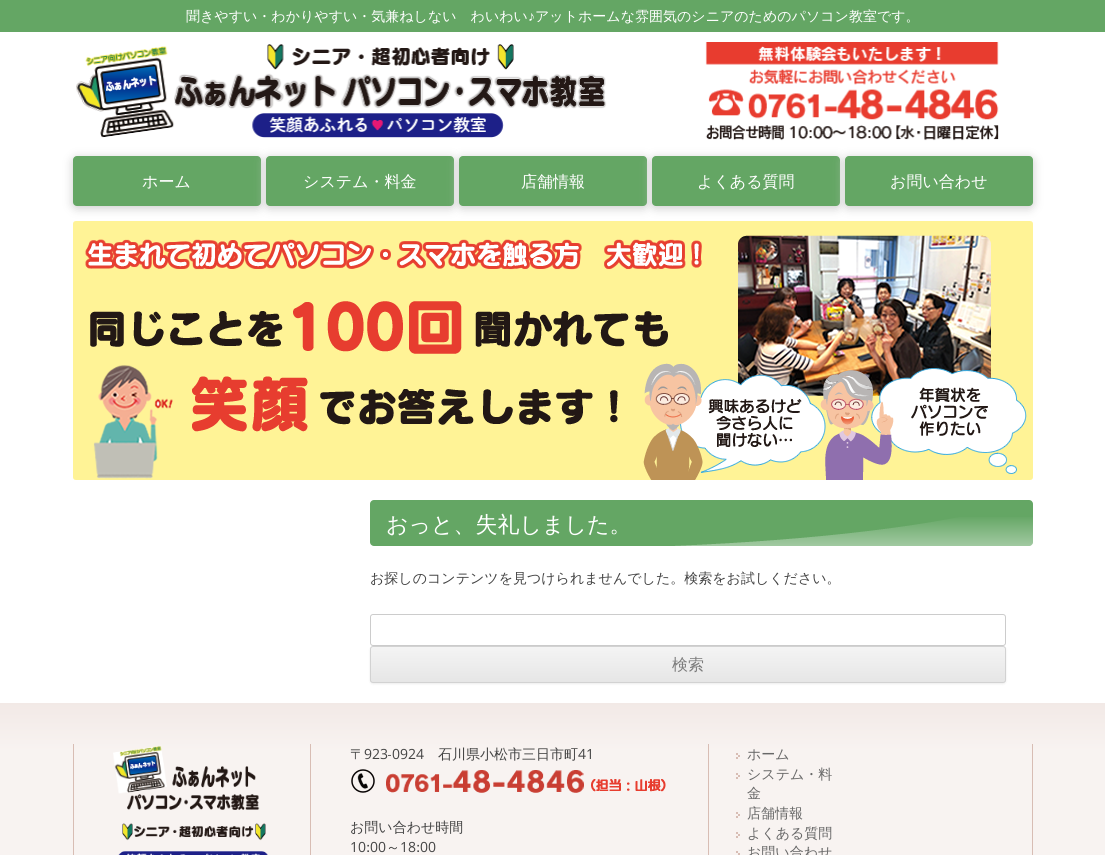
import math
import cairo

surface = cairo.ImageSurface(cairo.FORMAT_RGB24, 1105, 855)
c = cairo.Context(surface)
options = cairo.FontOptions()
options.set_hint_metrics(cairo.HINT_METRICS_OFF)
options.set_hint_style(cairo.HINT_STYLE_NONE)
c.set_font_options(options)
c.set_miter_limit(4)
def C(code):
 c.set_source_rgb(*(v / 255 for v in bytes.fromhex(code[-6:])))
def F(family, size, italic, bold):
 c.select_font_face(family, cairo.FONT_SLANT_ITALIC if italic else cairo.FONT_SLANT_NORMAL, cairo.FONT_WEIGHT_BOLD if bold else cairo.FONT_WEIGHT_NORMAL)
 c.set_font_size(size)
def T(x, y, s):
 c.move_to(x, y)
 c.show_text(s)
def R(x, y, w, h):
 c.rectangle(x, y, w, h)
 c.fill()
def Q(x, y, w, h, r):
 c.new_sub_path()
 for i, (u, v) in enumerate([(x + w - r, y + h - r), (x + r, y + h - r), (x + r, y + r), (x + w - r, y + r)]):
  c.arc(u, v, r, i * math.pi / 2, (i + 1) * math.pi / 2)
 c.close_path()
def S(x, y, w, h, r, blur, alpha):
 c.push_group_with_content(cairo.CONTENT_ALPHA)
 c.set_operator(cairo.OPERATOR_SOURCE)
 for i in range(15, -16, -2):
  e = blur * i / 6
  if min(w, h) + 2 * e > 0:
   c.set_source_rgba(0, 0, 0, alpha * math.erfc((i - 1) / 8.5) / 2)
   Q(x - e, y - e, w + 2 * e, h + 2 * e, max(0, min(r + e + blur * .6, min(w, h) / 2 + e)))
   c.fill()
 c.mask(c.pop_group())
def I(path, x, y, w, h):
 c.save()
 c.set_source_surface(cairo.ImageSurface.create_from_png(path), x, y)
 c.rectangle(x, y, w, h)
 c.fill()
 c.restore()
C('ffffff')
c.paint()
C('64a664')
R(0,0,1105,32)
F('WenQuanYi Zen Hei Medium',14,0,0)
C('ffffff')
T(186,21,'聞きやすい・わかりやすい・気兼ねしない　わいわい')
F('Liberation Sans',14,0,0)
T(528,21,'♪')
F('WenQuanYi Zen Hei Medium',14,0,0)
T(535,21,'アットホームな雰囲気のシニアのためのパソコン教室です。')
I('1.png',76,44,531,94)
I('2.png',705,42,294,99)
C('cccccc')
S(73,158,188,50,4,5,1)
C('64a664')
Q(73,156,188,50,4)
c.fill()
F('WenQuanYi Zen Hei Medium',16,0,0)
C('ffffff')
T(142,187,'ホーム')
C('cccccc')
S(266,158,188,50,4,5,1)
C('64a664')
Q(266,156,188,50,4)
c.fill()
C('ffffff')
T(303,187,'システム・料金')
C('cccccc')
S(459,158,188,50,4,5,1)
C('64a664')
Q(459,156,188,50,4)
c.fill()
C('ffffff')
T(521,187,'店舗情報')
C('cccccc')
S(652,158,188,50,4,5,1)
C('64a664')
Q(652,156,188,50,4)
c.fill()
C('ffffff')
T(697,187,'よくある質問')
C('cccccc')
S(845,158,188,50,4,5,1)
C('64a664')
Q(845,156,188,50,4)
c.fill()
C('ffffff')
T(890,187,'お問い合わせ')
I('3.png',73,221,960,259)
C('64a664')
Q(370,500,663,46,4)
c.fill()
I('4.png',675,517,358,29)
F('WenQuanYi Zen Hei Medium',22,0,0)
C('ffffff')
T(386,532,'おっと、失礼しました。')
F('WenQuanYi Zen Hei Medium',14,0,0)
C('444444')
T(370,583,'お探しのコンテンツを見つけられませんでした。検索をお試しください。')
Q(370.5,614.5,635,31,2.5)
C('cccccc')
c.set_line_width(1)
c.stroke()
C('404040')
S(370,647,636,37,3,1,.1)
c.save()
Q(370,646,636,37,3)
c.clip()
gradient = cairo.LinearGradient(688,647,688,682)
gradient.add_color_stop_rgba(0,0.957,0.957,0.957,1)
gradient.add_color_stop_rgba(1,0.902,0.902,0.902,1)
c.set_source(gradient)
R(370,647,636,35)
c.restore()
Q(370.5,646.5,635,36,2.5)
C('d2d2d2')
c.stroke()
F('WenQuanYi Zen Hei Medium',16,0,0)
C('7c7c7c')
T(672,670,'検索')
gradient = cairo.LinearGradient(553,703,553,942)
gradient.add_color_stop_rgba(0,0.949,0.914,0.902,1)
gradient.add_color_stop_rgba(.2,0.973,0.953,0.945,1)
c.set_source(gradient)
R(0,703,1105,152)
C('d8bdb4')
R(1032,744,1,111)
R(73,744,1,111)
I('5.png',113,745,155,110)
R(310,744,1,111)
F('WenQuanYi Zen Hei Medium',14,0,0)
C('444444')
T(350,759,'〒')
F('Open Sans',14,0,0)
T(364,759,'923')
F('WenQuanYi Zen Hei Medium',14,0,0)
T(388,759,'-')
F('Open Sans',14,0,0)
T(392,759,'0924')
F('WenQuanYi Zen Hei Medium',14,0,0)
T(438,759,'石川県小松市三日市町')
F('Open Sans',14,0,0)
T(578,759,'41')
I('6.png',351,769,315,24)
F('WenQuanYi Zen Hei Medium',14,0,0)
T(350,832,'お問い合わせ時間')
F('Open Sans',14,0,0)
T(350,852,'10')
F('WenQuanYi Zen Hei Medium',14,0,0)
T(366,852,':')
F('Open Sans',14,0,0)
T(370,852,'00')
F('WenQuanYi Zen Hei Medium',14,0,0)
T(386,852,'～')
F('Open Sans',14,0,0)
T(400,852,'18')
F('WenQuanYi Zen Hei Medium',14,0,0)
T(416,852,':')
F('Open Sans',14,0,0)
T(420,852,'00')
C('d8bdb4')
R(708,744,1,111)
I('7.png',736,753,4,6)
F('WenQuanYi Zen Hei Medium',14,0,0)
C('686868')
T(747,759,'ホーム')
I('7.png',736,773,4,6)
T(747,779,'システム・料')
T(747,798,'金')
I('7.png',736,812,4,6)
T(747,818,'店舗情報')
I('7.png',736,832,4,6)
T(747,838,'よくある質問')
I('8.png',736,851,4,4)
T(747,857,'お問い合わせ')
surface.write_to_png('o.png')
